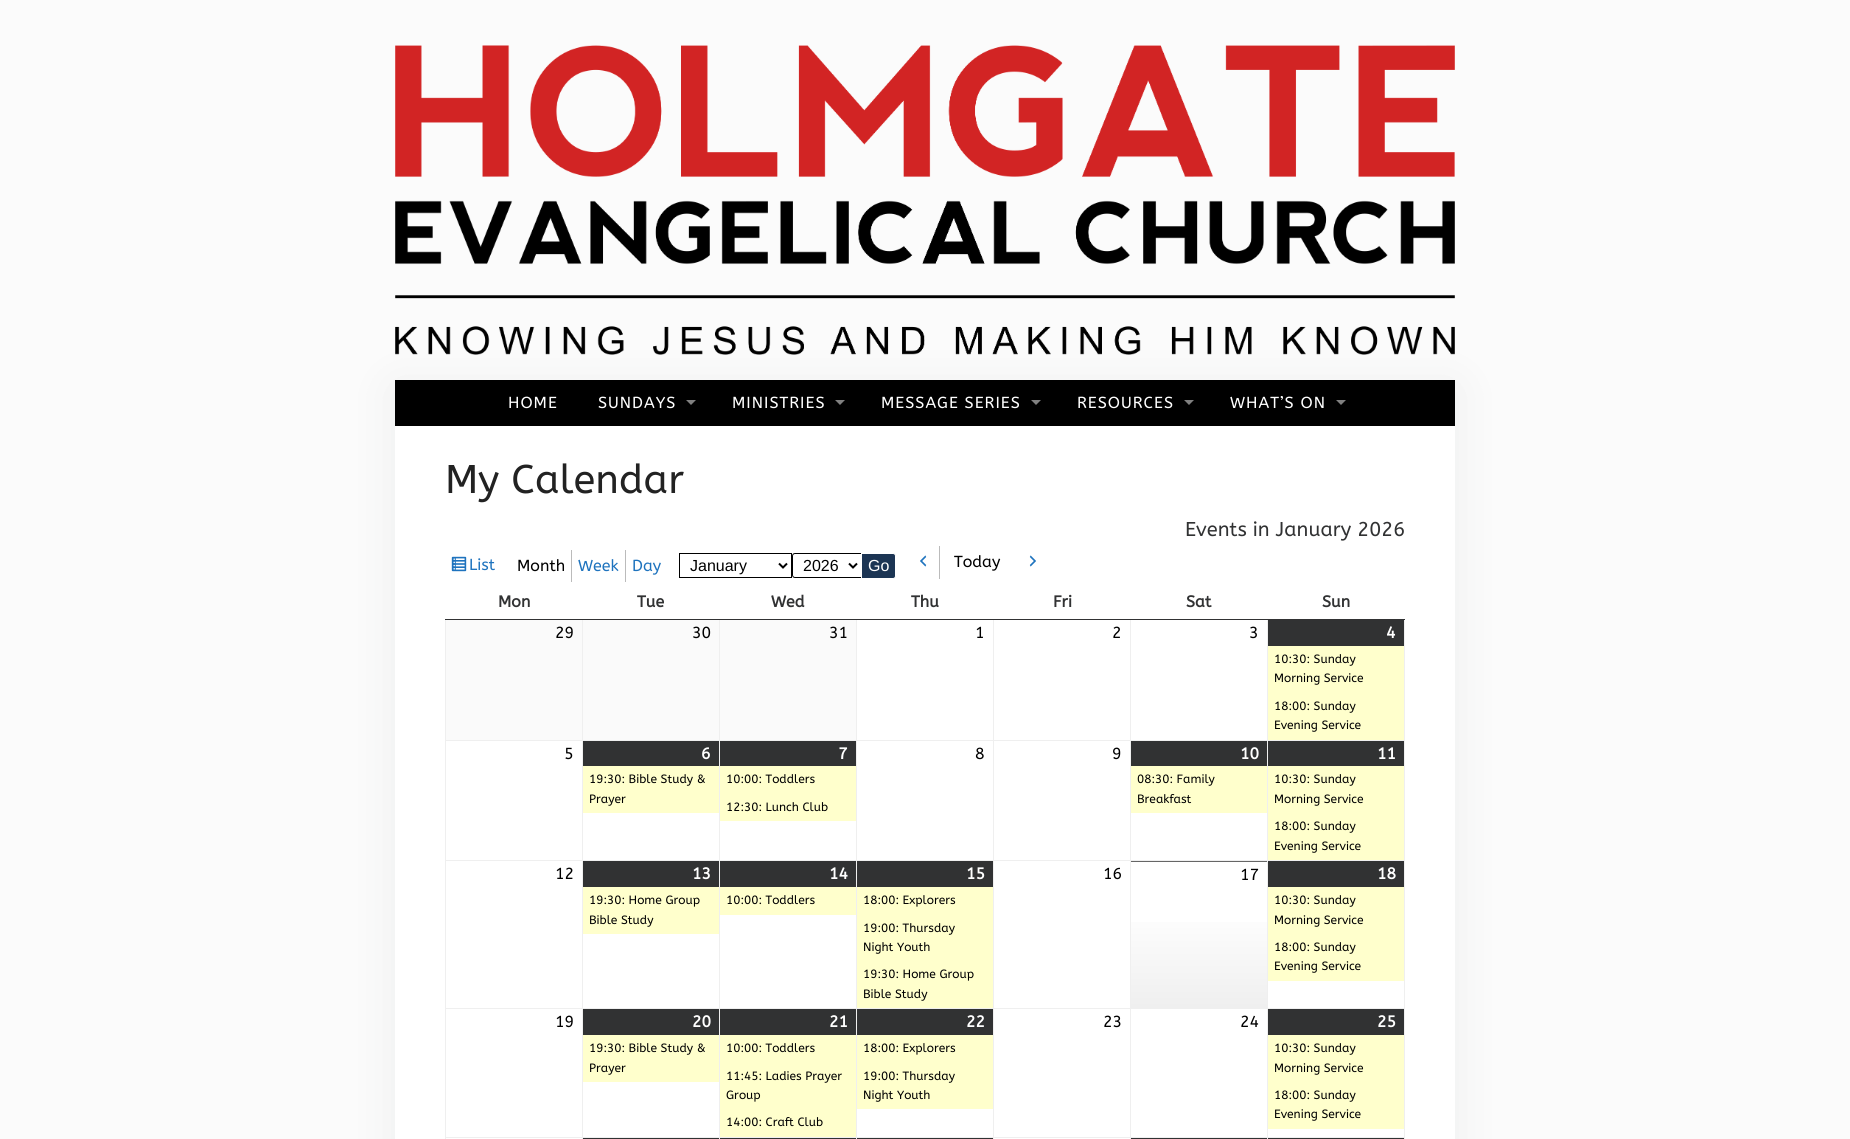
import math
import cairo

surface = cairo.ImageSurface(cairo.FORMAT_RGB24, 1850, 1139)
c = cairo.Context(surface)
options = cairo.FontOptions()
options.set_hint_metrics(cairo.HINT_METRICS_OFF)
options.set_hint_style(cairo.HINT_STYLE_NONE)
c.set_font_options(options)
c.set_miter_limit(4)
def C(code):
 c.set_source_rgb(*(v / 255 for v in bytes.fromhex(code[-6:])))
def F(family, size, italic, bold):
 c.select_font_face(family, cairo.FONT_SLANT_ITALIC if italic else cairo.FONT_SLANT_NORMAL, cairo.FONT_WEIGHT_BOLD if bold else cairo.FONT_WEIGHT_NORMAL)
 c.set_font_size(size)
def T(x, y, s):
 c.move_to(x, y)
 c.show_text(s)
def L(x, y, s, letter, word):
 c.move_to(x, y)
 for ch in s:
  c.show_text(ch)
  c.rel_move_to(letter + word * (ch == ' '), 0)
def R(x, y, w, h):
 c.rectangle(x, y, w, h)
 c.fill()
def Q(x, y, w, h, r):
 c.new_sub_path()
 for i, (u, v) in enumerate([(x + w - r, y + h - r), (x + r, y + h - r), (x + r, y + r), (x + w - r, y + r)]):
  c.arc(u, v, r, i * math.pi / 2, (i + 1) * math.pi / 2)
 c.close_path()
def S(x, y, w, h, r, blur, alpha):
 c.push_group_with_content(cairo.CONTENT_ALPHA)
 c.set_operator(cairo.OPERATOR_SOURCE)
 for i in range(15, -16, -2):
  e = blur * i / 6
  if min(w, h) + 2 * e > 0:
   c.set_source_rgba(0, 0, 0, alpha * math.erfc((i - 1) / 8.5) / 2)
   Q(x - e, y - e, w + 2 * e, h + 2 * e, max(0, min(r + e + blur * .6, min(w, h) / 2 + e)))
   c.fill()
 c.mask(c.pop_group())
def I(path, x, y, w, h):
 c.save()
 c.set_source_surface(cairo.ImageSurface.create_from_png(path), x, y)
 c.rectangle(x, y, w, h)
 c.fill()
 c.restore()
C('fbfbfb')
c.paint()
I('1.png',395,45,1060,310)
C('263238')
S(395,387,1060,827,0,25,.07)
C('ffffff')
R(395,426,1060,713)
C('000000')
R(395,380,1060,46)
F('ABeeZee',16,0,0)
C('ffffff')
L(508,408,'HOME',1,0)
L(598,408,'SUNDAYS',1,0)
C('808080')
c.new_path()
c.move_to(686,400)
c.line_to(696,400)
c.line_to(691,405)
c.close_path()
c.fill()
C('ffffff')
L(732,408,'MINISTRIES',1,0)
C('808080')
c.new_path()
c.move_to(835,400)
c.line_to(845,400)
c.line_to(840,405)
c.close_path()
c.fill()
C('ffffff')
L(881,408,'MESSAGE SERIES',1,0)
C('808080')
c.new_path()
c.move_to(1031,400)
c.line_to(1041,400)
c.line_to(1036,405)
c.close_path()
c.fill()
C('ffffff')
L(1077,408,'RESOURCES',1,0)
C('808080')
c.new_path()
c.move_to(1184,400)
c.line_to(1194,400)
c.line_to(1189,405)
c.close_path()
c.fill()
C('ffffff')
L(1230,408,'WHAT’S ON',1,0)
C('808080')
c.new_path()
c.move_to(1336,400)
c.line_to(1346,400)
c.line_to(1341,405)
c.close_path()
c.fill()
F('ABeeZee',40,0,0)
C('222222')
T(445,493,'My Calendar')
F('ABeeZee',20,0,0)
C('313233')
T(1185,536,'Events in January 2026')
I('2.png',451,556,16,16)
F('ABeeZee',16,0,0)
C('1e73be')
T(469,570,'List')
C('bbbbbb')
R(571,550,1,32)
C('000000')
T(517,571,'Month')
C('bbbbbb')
R(625,550,1,32)
C('1e73be')
T(578,571,'Week')
T(632,571,'Day')
c.rectangle(679.5,553.5,112,24)
C('000000')
c.set_line_width(1)
c.stroke()
c.new_path()
c.move_to(779,563.5)
c.line_to(783,567.5)
c.line_to(787,563.5)
c.set_line_width(2)
c.stroke()
F('Liberation Sans',16,0,0)
T(690,571,'January')
c.new_path()
c.move_to(795,553.5)
c.line_to(861.5,553.5)
c.line_to(861.5,577.5)
c.line_to(795,577.5)
c.curve_to(793.5,577.5,792.5,576.5,792.5,575)
c.line_to(792.5,556)
c.curve_to(792.5,554.5,793.5,553.5,795,553.5)
c.close_path()
c.set_line_width(1)
c.stroke()
c.new_path()
c.move_to(849,563.5)
c.line_to(853,567.5)
c.line_to(857,563.5)
c.set_line_width(2)
c.stroke()
T(803,571,'2026')
C('1c3554')
c.new_path()
c.move_to(861.5,553.5)
c.line_to(893,553.5)
c.curve_to(894.5,553.5,895.5,554.5,895.5,556)
c.line_to(895.5,576)
c.curve_to(895.5,577.5,894.5,578.5,893,578.5)
c.line_to(861.5,578.5)
c.close_path()
c.fill_preserve()
C('ffffff')
c.set_line_width(1)
c.stroke()
T(868,571,'Go')
C('bbbbbb')
R(939,546,1,33)
I('3.png',920,555,7,12)
F('ABeeZee',16,0,0)
C('000000')
T(954,567,'Today')
I('4.png',1029,555,7,12)
F('ABeeZee',16,0,1)
C('313233')
T(498,607,'Mon')
T(637,607,'Tue')
T(771,607,'Wed')
T(911,607,'Thu')
T(1053,607,'Fri')
T(1186,607,'Sat')
C('efefef')
R(1267,740,138,1)
R(1267,860,138,1)
R(1267,1008,138,1)
R(1267,1137,138,1)
R(1267,1137,1,2)
R(1130,1137,138,1)
R(1267,1008,1,130)
R(1130,1008,138,1)
R(1267,860,1,149)
R(1267,740,1,121)
R(1130,740,138,1)
R(1130,1137,1,2)
R(993,1137,138,1)
R(1130,1008,1,130)
R(993,1008,138,1)
R(1130,860,1,149)
R(993,860,138,1)
R(1130,860,138,1)
R(1130,740,1,121)
R(993,740,138,1)
R(993,1137,1,2)
R(856,1137,138,1)
R(993,1008,1,130)
R(856,1008,138,1)
R(993,860,1,149)
R(856,860,138,1)
R(993,740,1,121)
R(856,740,138,1)
R(856,1137,1,2)
R(719,1137,138,1)
R(856,1008,1,130)
R(719,1008,138,1)
R(856,860,1,149)
R(719,860,138,1)
R(856,740,1,121)
R(719,740,138,1)
R(719,1137,1,2)
R(582,1137,138,1)
R(719,1008,1,130)
R(582,1008,138,1)
R(719,860,1,149)
R(582,860,138,1)
R(719,740,1,121)
R(582,740,138,1)
R(582,1137,1,2)
R(445,1137,138,1)
R(582,1008,1,130)
R(445,1008,138,1)
R(582,860,1,149)
R(445,860,138,1)
R(582,740,1,121)
R(445,740,138,1)
R(582,619,1,122)
R(719,619,1,122)
R(856,619,1,122)
R(993,619,1,122)
R(1130,619,1,122)
R(1267,619,1,122)
R(445,1137,1,2)
R(445,1008,1,130)
R(445,860,1,149)
R(445,619,1,242)
R(1404,1137,1,2)
R(1404,1008,1,130)
R(1404,860,1,149)
R(1404,619,1,242)
C('313233')
R(445,619,960,1)
T(1322,607,'Sun')
C('fafafa')
R(446,620,136,120)
F('ABeeZee',16,0,0)
C('000000')
T(555,638,'29')
C('fafafa')
R(583,620,136,120)
C('000000')
T(692,638,'30')
C('fafafa')
R(720,620,136,120)
C('000000')
T(829,638,'31')
T(975,638,'1')
T(1112,638,'2')
T(1249,638,'3')
C('313233')
R(1268,620,136,26)
F('ABeeZee',16,0,1)
C('ffffff')
T(1386,638,'4')
C('ffffcc')
R(1268,646,136,94)
F('ABeeZee',12,0,0)
C('000000')
T(1274,663,'10:30: Sunday')
T(1274,682,'Morning Service')
T(1274,710,'18:00: Sunday')
T(1274,729,'Evening Service')
F('ABeeZee',16,0,0)
T(564,759,'5')
C('313233')
R(583,741,136,25)
F('ABeeZee',16,0,1)
C('ffffff')
T(701,759,'6')
C('ffffcc')
R(583,766,136,47)
F('ABeeZee',12,0,0)
C('000000')
T(589,783,'19:30: Bible Study &')
T(589,803,'Prayer')
C('313233')
R(720,741,136,25)
F('ABeeZee',16,0,1)
C('ffffff')
T(838,759,'7')
C('ffffcc')
R(720,766,136,55)
F('ABeeZee',12,0,0)
C('000000')
T(726,783,'10:00: Toddlers')
T(726,811,'12:30: Lunch Club')
F('ABeeZee',16,0,0)
T(975,759,'8')
T(1112,759,'9')
C('313233')
R(1131,741,136,25)
F('ABeeZee',16,0,1)
C('ffffff')
T(1240,759,'10')
C('ffffcc')
R(1131,766,136,47)
F('ABeeZee',12,0,0)
C('000000')
T(1137,783,'08:30: Family')
T(1137,803,'Breakfast')
C('313233')
R(1268,741,136,25)
F('ABeeZee',16,0,1)
C('ffffff')
T(1377,759,'11')
C('ffffcc')
R(1268,766,136,94)
F('ABeeZee',12,0,0)
C('000000')
T(1274,783,'10:30: Sunday')
T(1274,803,'Morning Service')
T(1274,830,'18:00: Sunday')
T(1274,850,'Evening Service')
F('ABeeZee',16,0,0)
T(555,879,'12')
C('313233')
R(583,861,136,26)
F('ABeeZee',16,0,1)
C('ffffff')
T(692,879,'13')
C('ffffcc')
R(583,887,136,47)
F('ABeeZee',12,0,0)
C('000000')
T(589,904,'19:30: Home Group')
T(589,924,'Bible Study')
C('313233')
R(720,861,136,26)
F('ABeeZee',16,0,1)
C('ffffff')
T(829,879,'14')
C('ffffcc')
R(720,887,136,28)
F('ABeeZee',12,0,0)
C('000000')
T(726,904,'10:00: Toddlers')
C('313233')
R(857,861,136,26)
F('ABeeZee',16,0,1)
C('ffffff')
T(966,879,'15')
C('ffffcc')
R(857,887,136,121)
F('ABeeZee',12,0,0)
C('000000')
T(863,904,'18:00: Explorers')
T(863,932,'19:00: Thursday')
T(863,951,'Night Youth')
T(863,978,'19:30: Home Group')
T(863,998,'Bible Study')
F('ABeeZee',16,0,0)
T(1103,879,'16')
gradient = cairo.LinearGradient(1200,862,1200,1008)
gradient.add_color_stop_rgba(0,1,1,1,1)
gradient.add_color_stop_rgba(.3,1,1,1,1)
gradient.add_color_stop_rgba(1,0.937,0.937,0.937,1)
c.set_source(gradient)
R(1131,922,136,86)
C('666666')
R(1131,861,136,1)
C('000000')
T(1240,880,'17')
C('313233')
R(1268,861,136,26)
F('ABeeZee',16,0,1)
C('ffffff')
T(1377,879,'18')
C('ffffcc')
R(1268,887,136,94)
F('ABeeZee',12,0,0)
C('000000')
T(1274,904,'10:30: Sunday')
T(1274,924,'Morning Service')
T(1274,951,'18:00: Sunday')
T(1274,970,'Evening Service')
F('ABeeZee',16,0,0)
T(555,1027,'19')
C('313233')
R(583,1009,136,26)
F('ABeeZee',16,0,1)
C('ffffff')
T(692,1027,'20')
C('ffffcc')
R(583,1035,136,47)
F('ABeeZee',12,0,0)
C('000000')
T(589,1052,'19:30: Bible Study &')
T(589,1072,'Prayer')
C('313233')
R(720,1009,136,26)
F('ABeeZee',16,0,1)
C('ffffff')
T(829,1027,'21')
C('ffffcc')
R(720,1035,136,102)
F('ABeeZee',12,0,0)
C('000000')
T(726,1052,'10:00: Toddlers')
T(726,1080,'11:45: Ladies Prayer')
T(726,1099,'Group')
T(726,1126,'14:00: Craft Club')
C('313233')
R(857,1009,136,26)
F('ABeeZee',16,0,1)
C('ffffff')
T(966,1027,'22')
C('ffffcc')
R(857,1035,136,74)
F('ABeeZee',12,0,0)
C('000000')
T(863,1052,'18:00: Explorers')
T(863,1080,'19:00: Thursday')
T(863,1099,'Night Youth')
F('ABeeZee',16,0,0)
T(1103,1027,'23')
T(1240,1027,'24')
C('313233')
R(1268,1009,136,26)
F('ABeeZee',16,0,1)
C('ffffff')
T(1377,1027,'25')
C('ffffcc')
R(1268,1035,136,94)
F('ABeeZee',12,0,0)
C('000000')
T(1274,1052,'10:30: Sunday')
T(1274,1072,'Morning Service')
T(1274,1099,'18:00: Sunday')
T(1274,1118,'Evening Service')
C('313233')
R(583,1138,136,1)
R(720,1138,136,1)
R(857,1138,136,1)
R(1131,1138,136,1)
R(1268,1138,136,1)
surface.write_to_png('o.png')
